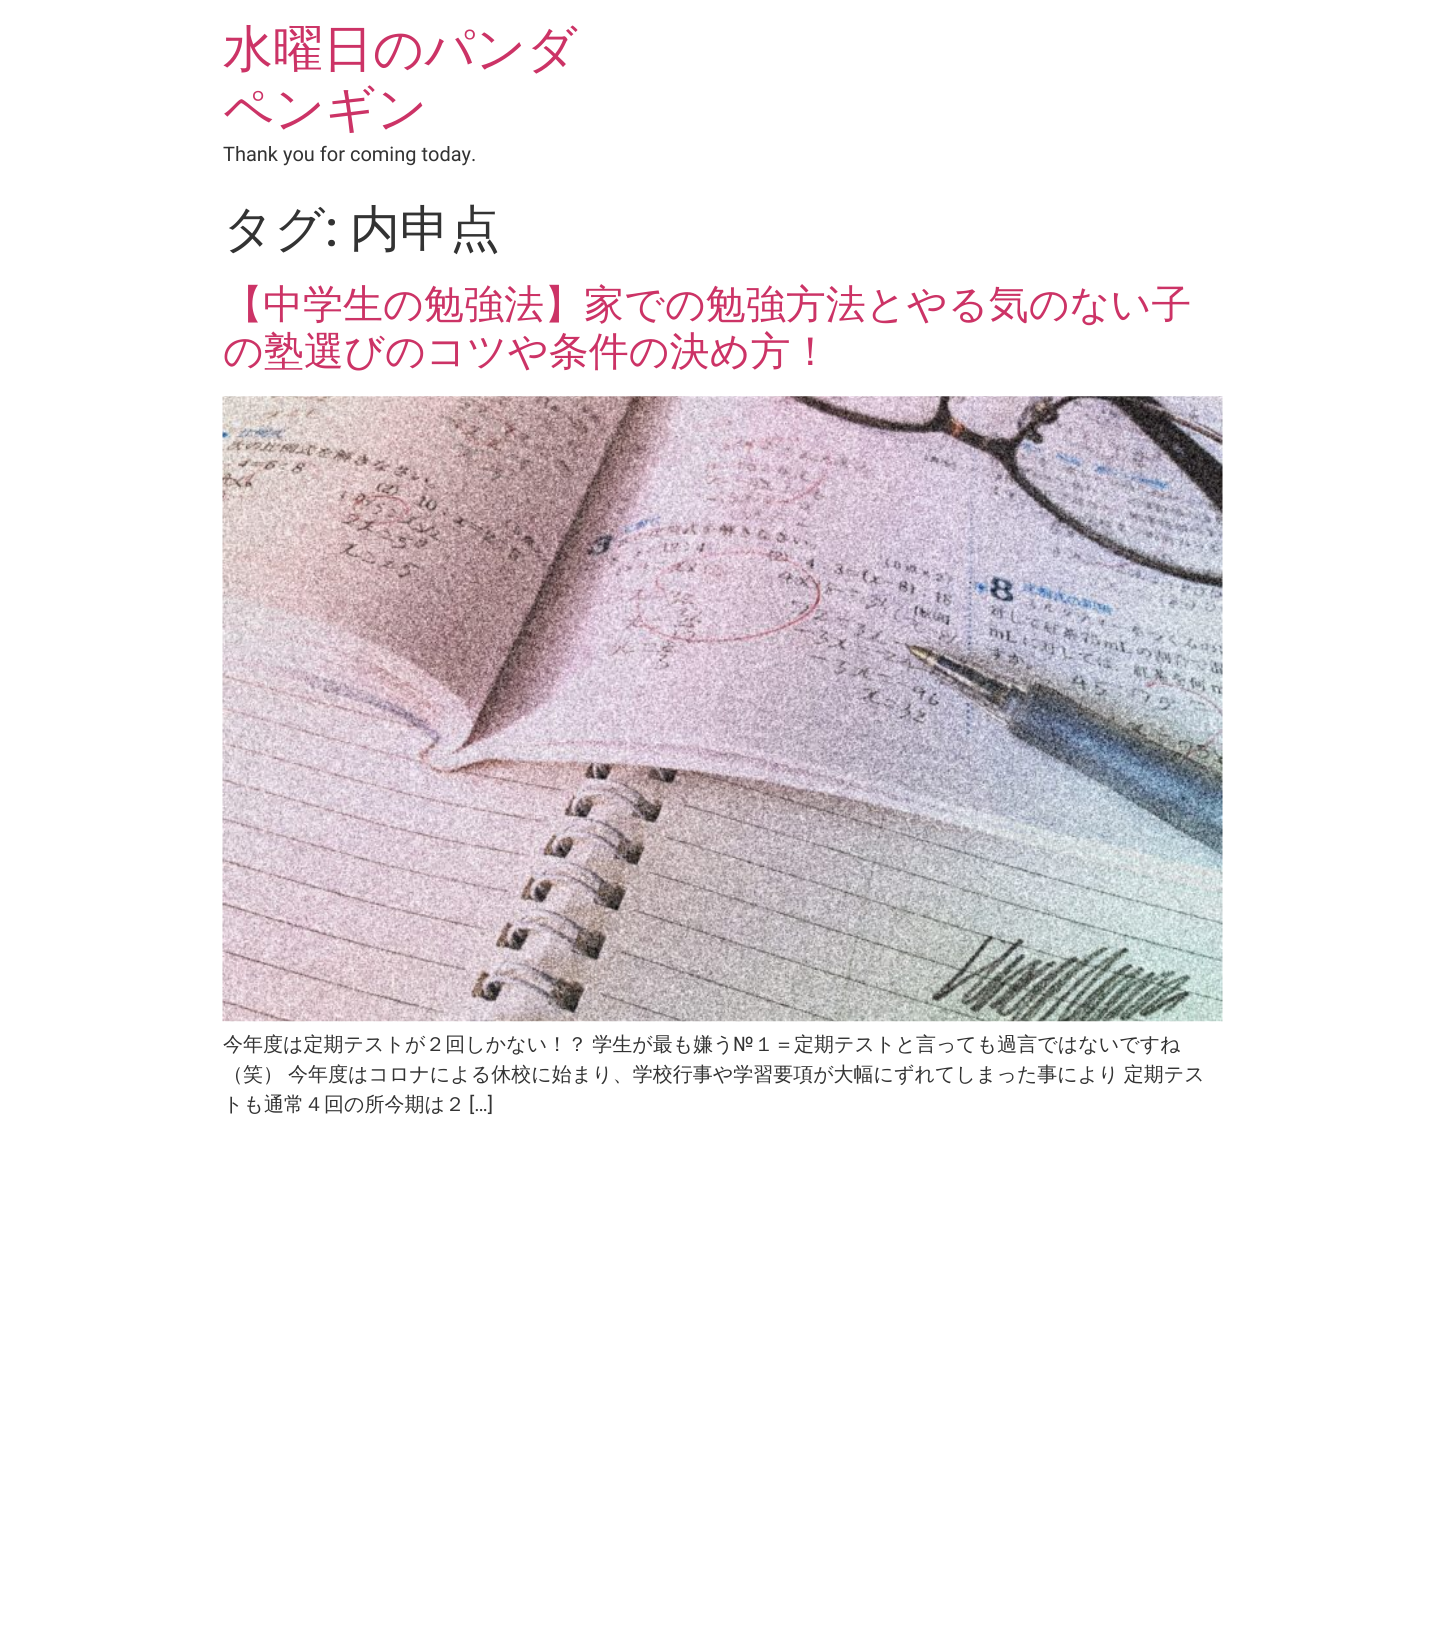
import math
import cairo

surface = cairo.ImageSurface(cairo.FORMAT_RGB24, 1445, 1630)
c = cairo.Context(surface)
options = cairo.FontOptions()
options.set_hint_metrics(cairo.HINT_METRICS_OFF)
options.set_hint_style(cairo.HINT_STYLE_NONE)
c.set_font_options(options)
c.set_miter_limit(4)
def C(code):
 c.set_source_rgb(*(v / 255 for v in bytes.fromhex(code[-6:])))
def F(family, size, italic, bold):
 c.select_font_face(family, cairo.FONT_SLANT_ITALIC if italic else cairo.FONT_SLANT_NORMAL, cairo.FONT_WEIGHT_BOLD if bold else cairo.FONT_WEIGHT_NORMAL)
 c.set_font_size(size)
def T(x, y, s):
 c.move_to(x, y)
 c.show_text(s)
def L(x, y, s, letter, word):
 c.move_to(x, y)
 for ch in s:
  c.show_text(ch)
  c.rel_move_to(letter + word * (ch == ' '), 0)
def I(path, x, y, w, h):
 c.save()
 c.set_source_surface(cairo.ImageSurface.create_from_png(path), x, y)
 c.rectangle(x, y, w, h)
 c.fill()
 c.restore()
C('ffffff')
c.paint()
F('WenQuanYi Zen Hei Medium',50,0,0)
C('cc3366')
T(223,66,'水曜日のパンダ')
T(223,126,'ペンギン')
F('Roboto',20,0,0)
C('333333')
T(223,161,'Thank you for coming today.')
F('WenQuanYi Zen Hei Medium',50,0,0)
T(223,246,'タグ')
F('Roboto Medium',50,0,0)
T(325,246,':')
F('WenQuanYi Zen Hei Medium',50,0,0)
T(350,246,'内申点')
F('WenQuanYi Zen Hei Medium',40,0,0)
C('cc3366')
T(223,318,'【中学生の勉強法】家での勉強方法とやる気のない子')
T(223,365,'の塾選びのコツや条件の決め方！')
I('1.png',222,396,1001,626)
F('WenQuanYi Zen Hei Medium',20,0,0)
C('333333')
L(223,1051,'今年度は定期テストが２回しかない！？ 学生が最も嫌う',0,-1)
F('Roboto',20,0,0)
T(733,1051,'№')
F('WenQuanYi Zen Hei Medium',20,0,0)
T(754,1051,'１＝定期テストと言っても過言ではないですね')
L(223,1081,'（笑） 今年度はコロナによる休校に始まり、学校行事や学習要項が大幅にずれてしまった事により 定期テス',0,-1)
T(223,1111,'トも通常４回の所今期は２')
F('Roboto',20,0,0)
T(469,1111,'[…]')
surface.write_to_png('o.png')
